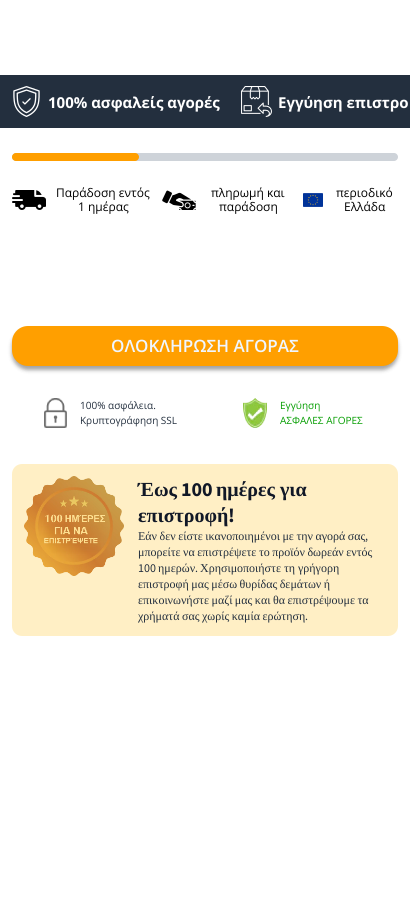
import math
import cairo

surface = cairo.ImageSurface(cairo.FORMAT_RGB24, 410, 911)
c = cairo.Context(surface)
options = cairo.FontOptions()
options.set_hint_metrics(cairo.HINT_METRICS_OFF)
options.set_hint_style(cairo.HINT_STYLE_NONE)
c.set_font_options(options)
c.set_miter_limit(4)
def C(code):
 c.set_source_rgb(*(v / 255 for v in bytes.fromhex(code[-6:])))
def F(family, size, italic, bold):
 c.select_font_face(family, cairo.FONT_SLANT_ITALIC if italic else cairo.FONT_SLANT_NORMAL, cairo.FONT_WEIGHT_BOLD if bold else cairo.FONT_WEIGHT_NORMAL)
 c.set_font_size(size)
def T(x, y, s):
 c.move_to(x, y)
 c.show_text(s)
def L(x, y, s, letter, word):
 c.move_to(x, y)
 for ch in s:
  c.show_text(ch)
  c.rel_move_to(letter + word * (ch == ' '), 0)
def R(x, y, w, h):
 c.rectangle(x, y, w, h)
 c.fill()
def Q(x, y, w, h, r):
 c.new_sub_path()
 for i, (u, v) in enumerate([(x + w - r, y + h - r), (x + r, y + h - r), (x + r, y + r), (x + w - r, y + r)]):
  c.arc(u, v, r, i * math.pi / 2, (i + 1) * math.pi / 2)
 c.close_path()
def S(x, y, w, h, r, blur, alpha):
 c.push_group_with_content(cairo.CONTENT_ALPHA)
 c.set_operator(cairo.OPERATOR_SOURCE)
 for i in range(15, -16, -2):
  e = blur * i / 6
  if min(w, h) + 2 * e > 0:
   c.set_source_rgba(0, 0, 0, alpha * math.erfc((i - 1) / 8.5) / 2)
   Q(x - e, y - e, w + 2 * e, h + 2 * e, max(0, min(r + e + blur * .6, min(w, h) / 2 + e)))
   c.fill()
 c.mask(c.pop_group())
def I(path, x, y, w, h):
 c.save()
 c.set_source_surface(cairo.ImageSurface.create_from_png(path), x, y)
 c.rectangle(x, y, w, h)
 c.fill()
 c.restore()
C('ffffff')
c.paint()
C('232f3e')
R(0,75,410,53)
I('1.png',13,86,27,31)
F('Open Sans',15,0,1)
C('ffffff')
T(48,108,'100% ασφαλείς αγορές')
I('2.png',241,86,31,31)
T(278,108,'Εγγύηση επιστρο')
C('ced3d9')
Q(12,153,386,8,4)
c.fill()
C('ff9f00')
Q(12,153,127,8,4)
c.fill()
I('3.png',12,190,34,20)
F('Open Sans',12,0,0)
C('000000')
T(56,197,'Παράδοση εντός')
T(78,211,'1 ημέρας')
I('4.png',162,190,34,20)
T(211,197,'πληρωμή και')
T(219,211,'παράδοση')
I('5.png',303,193,20,14)
T(336,197,'περιοδικό')
T(344,211,'Ελλάδα')
C('000000')
S(12,330,386,40,16,2,.36)
C('ff9f00')
Q(12,326,386,40,16)
c.fill()
F('Open Sans SemiBold',17,0,0)
C('eff6ff')
T(111,352,'ΟΛΟΚΛΗΡΩΣΗ ΑΓΟΡΑΣ')
I('6.png',44,398,23,30)
F('Open Sans',10,0,0)
C('232f3e')
T(80,409,'100% ασφάλεια.')
T(80,424,'Κρυπτογράφηση SSL')
I('7.png',243,398,24,30)
C('049d00')
T(280,409,'Εγγύηση')
T(280,424,'ΑΣΦΑΛΕΣ ΑΓΟΡΕΣ')
C('ffefc5')
Q(12,464,386,172,10)
c.fill()
I('8.png',24,476,100,100)
F('Liberation Serif',20,0,1)
C('111827')
T(138,496,'Έως')
F('Source Sans Pro',20,0,1)
T(181,496,'100')
F('Liberation Serif',20,0,1)
T(216,496,'ημέρες για')
T(138,522,'επιστροφή')
F('Source Sans Pro',20,0,1)
T(228,522,'!')
F('Liberation Serif',12,0,0)
C('232f3e')
L(138,540,'Εάν δεν είστε ικανοποιημένοι με την αγορά σας',0,-.5)
F('Source Sans Pro',12,0,0)
T(365,540,',')
F('Liberation Serif',12,0,0)
L(138,556,'μπορείτε να επιστρέψετε το προϊόν δωρεάν εντός',0,-.5)
F('Source Sans Pro',12,0,0)
T(138,572,'100')
F('Liberation Serif',12,0,0)
T(158,572,'ημερών')
F('Source Sans Pro',12,0,0)
T(195,572,'.')
F('Liberation Serif',12,0,0)
T(200,572,'Χρησιμοποιήστε τη γρήγορη')
L(138,588,'επιστροφή μας μέσω θυρίδας δεμάτων ή',0,-.5)
L(138,604,'επικοινωνήστε μαζί μας και θα επιστρέψουμε τα',0,-.5)
L(138,620,'χρήματά σας χωρίς καμία ερώτηση',0,-.5)
F('Source Sans Pro',12,0,0)
T(305,620,'.')
surface.write_to_png('o.png')
